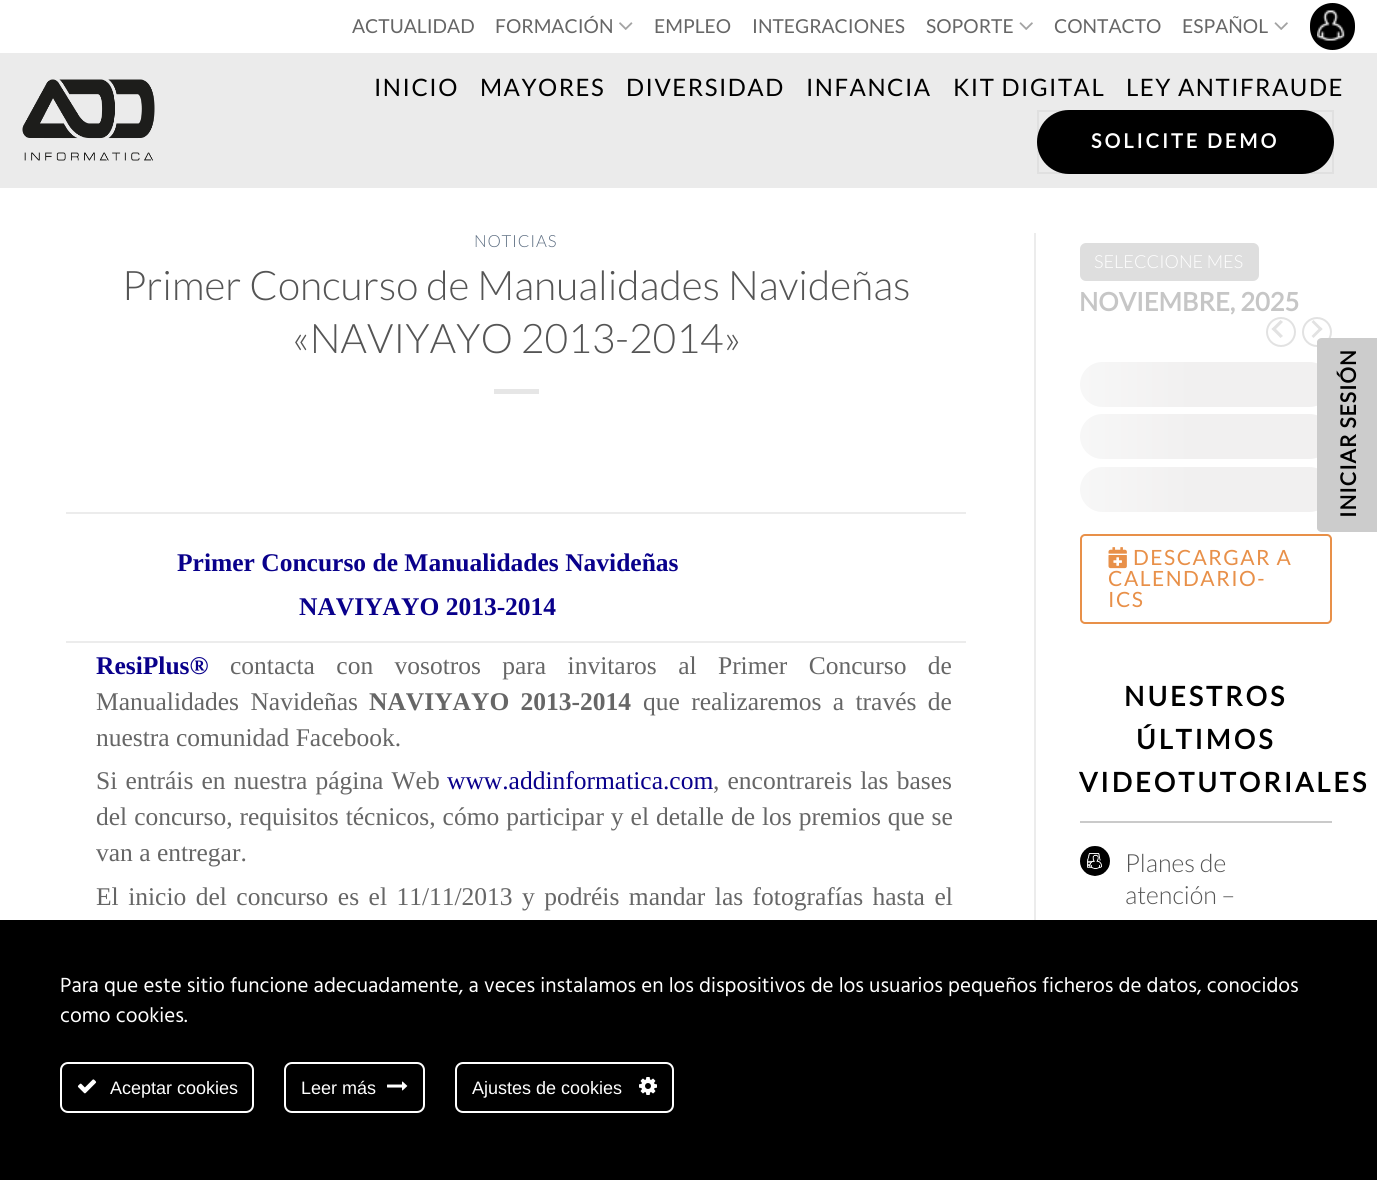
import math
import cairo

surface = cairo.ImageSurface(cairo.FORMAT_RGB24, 1377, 1180)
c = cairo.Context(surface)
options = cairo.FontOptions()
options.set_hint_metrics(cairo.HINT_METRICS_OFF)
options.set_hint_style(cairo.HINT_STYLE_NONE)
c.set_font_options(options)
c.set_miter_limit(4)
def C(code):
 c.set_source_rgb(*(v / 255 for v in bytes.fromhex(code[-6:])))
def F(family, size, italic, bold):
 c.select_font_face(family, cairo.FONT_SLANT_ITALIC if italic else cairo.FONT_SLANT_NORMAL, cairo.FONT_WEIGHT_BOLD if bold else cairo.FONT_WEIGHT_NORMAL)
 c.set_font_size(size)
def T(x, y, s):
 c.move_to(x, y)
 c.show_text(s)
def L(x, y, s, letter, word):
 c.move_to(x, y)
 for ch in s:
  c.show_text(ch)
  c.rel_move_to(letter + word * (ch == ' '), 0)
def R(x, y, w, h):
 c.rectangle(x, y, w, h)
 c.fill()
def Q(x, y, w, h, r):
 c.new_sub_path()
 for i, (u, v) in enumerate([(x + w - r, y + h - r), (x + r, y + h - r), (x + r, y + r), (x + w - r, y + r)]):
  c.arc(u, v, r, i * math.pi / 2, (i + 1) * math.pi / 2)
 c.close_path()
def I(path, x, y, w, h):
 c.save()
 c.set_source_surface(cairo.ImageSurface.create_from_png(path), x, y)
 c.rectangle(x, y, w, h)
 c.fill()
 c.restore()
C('ffffff')
c.paint()
F('Lato',19.25,0,0)
C('666666')
T(352,33,'ACTUALIDAD')
T(495,33,'FORMACIÓN')
I('1.png',619,22,14,8)
T(654,33,'EMPLEO')
T(752,33,'INTEGRACIONES')
T(926,33,'SOPORTE')
I('2.png',1019,22,14,8)
T(1054,33,'CONTACTO')
T(1182,33,'ESPAÑOL')
I('2.png',1274,22,14,8)
C('000000')
Q(1310,3,45,47,22.5)
c.fill()
I('3.png',1317,10,28,31)
C('ebebeb')
R(0,53,1377,135)
I('4.png',22,79,133,82)
F('Lato',24,0,0)
C('000000')
L(374,96,'INICIO',1.5,0)
L(480,96,'MAYORES',1.5,0)
L(626,96,'DIVERSIDAD',1.5,0)
L(806,96,'INFANCIA',1.5,0)
L(953,96,'KIT DIGITAL',1.5,0)
L(1126,96,'LEY ANTIFRAUDE',1.5,0)
Q(1037,110,297,64,32)
c.fill()
c.rectangle(1038,111,295,62)
c.set_source_rgba(0,0,0,0.05)
c.stroke()
F('Lato',19.75,0,1)
C('ffffff')
L(1091,148,'SOLICITE DEMO',3,0)
F('Lato Light',16.75,0,0)
C('5c6d81')
L(474,247,'NOTICIAS',.75,0)
F('Lato Light',40.75,0,0)
C('555555')
T(122,300,'Primer Concurso de Manualidades Navideñas')
T(292,353,'«NAVIYAYO 2013-2014»')
C('e6e6e6')
R(494,389,45,5)
C('ececec')
R(66,512,900,2)
F('Liberation Serif',25.5,0,1)
C('09008b')
T(177,571,'Primer Concurso de Manualidades Navideñas')
T(299,615,'NAVIYAYO 2013-2014')
C('ececec')
R(66,641,900,2)
C('09008b')
T(96,674,'ResiPlus®')
F('Liberation Serif',25.5,0,0)
C('666666')
L(230,674,'contacta con vosotros para invitaros al Primer Concurso de',0,15)
L(96,710,'Manualidades Navideñas',0,5)
F('Liberation Serif',25.5,0,1)
L(369,710,'NAVIYAYO 2013-2014',0,5)
F('Liberation Serif',25.5,0,0)
L(643,710,'que realizaremos a través de',0,5)
T(96,746,'nuestra comunidad Facebook.')
L(96,789,'Si entráis en nuestra página Web',0,1.75)
C('09008b')
T(447,789,'www.addinformatica.com')
C('666666')
L(713,789,', encontrareis las bases',0,1.75)
L(96,825,'del concurso, requisitos técnicos, cómo participar y el detalle de los premios que se',0,.6)
T(96,861,'van a entregar.')
L(96,905,'El inicio del concurso es el 11/11/2013 y podréis mandar las fotografías hasta el',0,3.1)
C('ececec')
R(1034,233,2,687)
C('dedede')
Q(1080,243,179,38,6)
c.fill()
F('Lato Light',18,0,0)
C('ffffff')
T(1094,268,'SELECCIONE MES')
F('Lato',25.5,0,1)
C('c6c6c6')
T(1079,311,'NOVIEMBRE, 2025')
c.new_path()
c.arc(1281,332,14,0,2 * math.pi)
C('e2e2e2')
c.stroke()
c.new_path()
c.move_to(1283,336)
c.line_to(1280.5,338)
c.line_to(1271.5,329)
c.line_to(1274,327)
c.close_path()
c.fill()
c.new_path()
c.move_to(1283,322)
c.line_to(1274,331)
c.line_to(1271.5,329)
c.line_to(1280.5,320)
c.close_path()
c.fill()
c.arc(1317,332,14,0,2 * math.pi)
c.stroke()
c.new_path()
c.move_to(1311.5,322)
c.line_to(1313.5,320)
c.line_to(1322.5,329)
c.line_to(1320.5,331)
c.close_path()
c.fill()
c.new_path()
c.move_to(1311.5,336)
c.line_to(1320.5,327)
c.line_to(1322.5,329)
c.line_to(1313.5,338)
c.close_path()
c.fill()
gradient = cairo.LinearGradient(1080,384,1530,384)
gradient.add_color_stop_rgba(0,0.969,0.969,0.969,1)
gradient.add_color_stop_rgba(.25,0.945,0.941,0.941,1)
gradient.add_color_stop_rgba(.75,0.945,0.941,0.941,1)
gradient.add_color_stop_rgba(1,0.969,0.969,0.969,1)
c.set_source(gradient)
Q(1080,362,252,45,22.5)
c.fill()
gradient = cairo.LinearGradient(1080,437,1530,437)
gradient.add_color_stop_rgba(0,0.969,0.969,0.969,1)
gradient.add_color_stop_rgba(.25,0.945,0.941,0.941,1)
gradient.add_color_stop_rgba(.75,0.945,0.941,0.941,1)
gradient.add_color_stop_rgba(1,0.969,0.969,0.969,1)
c.set_source(gradient)
Q(1080,414,252,45,22.5)
c.fill()
gradient = cairo.LinearGradient(1080,489,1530,489)
gradient.add_color_stop_rgba(0,0.969,0.969,0.969,1)
gradient.add_color_stop_rgba(.25,0.945,0.941,0.941,1)
gradient.add_color_stop_rgba(.75,0.945,0.941,0.941,1)
gradient.add_color_stop_rgba(1,0.969,0.969,0.969,1)
c.set_source(gradient)
Q(1080,467,252,45,22.5)
c.fill()
Q(1081,535,250,88,4)
C('e89049')
c.stroke()
I('5.png',1108,547,19,22)
F('Lato',21,0,0)
L(1133,565,'DESCARGAR A',1.5,0)
L(1108,586,'CALENDARIO-',1.5,0)
L(1108,607,'ICS',1.5,0)
F('Lato',27,0,1)
C('000000')
L(1124,706,'NUESTROS',3,0)
L(1136,749,'ÚLTIMOS',3,0)
L(1079,792,'VIDEOTUTORIALES',3,0)
C('cacaca')
R(1080,821,252,2)
I('6.png',1080,846,30,30)
F('Lato Light',25,0,0)
C('555555')
T(1125,872,'Planes de')
T(1125,904,'atención –')
C('cccccc')
c.new_path()
c.move_to(1317,528)
c.line_to(1317,342)
c.curve_to(1317,340,1319,338,1322,338)
c.line_to(1377,338)
c.line_to(1377,532)
c.line_to(1322,532)
c.curve_to(1319,532,1317,530,1317,528)
c.close_path()
c.fill()
F('Lato',21,0,1)
C('000000')
c.save()
c.translate(1356,518)
c.rotate(-90 * math.pi / 180)
L(0,0,'INICIAR SESIÓN',1,0)
c.restore()
R(0,920,1377,260)
F('Hind',21,0,0)
C('ffffff')
T(60,992,'Para que este sitio funcione adecuadamente, a veces instalamos en los dispositivos de los usuarios pequeños ficheros de datos, conocidos')
T(60,1022,'como cookies.')
Q(61,1063,192,49,7)
c.stroke()
I('7.png',77,1079,20,15)
F('Liberation Sans',18,0,0)
T(110,1094,'Aceptar cookies')
Q(285,1063,139,49,7)
c.stroke()
T(301,1094,'Leer más')
I('8.png',387,1081,21,10)
Q(456,1063,217,49,7)
c.stroke()
T(472,1094,'Ajustes de cookies')
I('9.png',639,1077,18,18)
surface.write_to_png('o.png')
